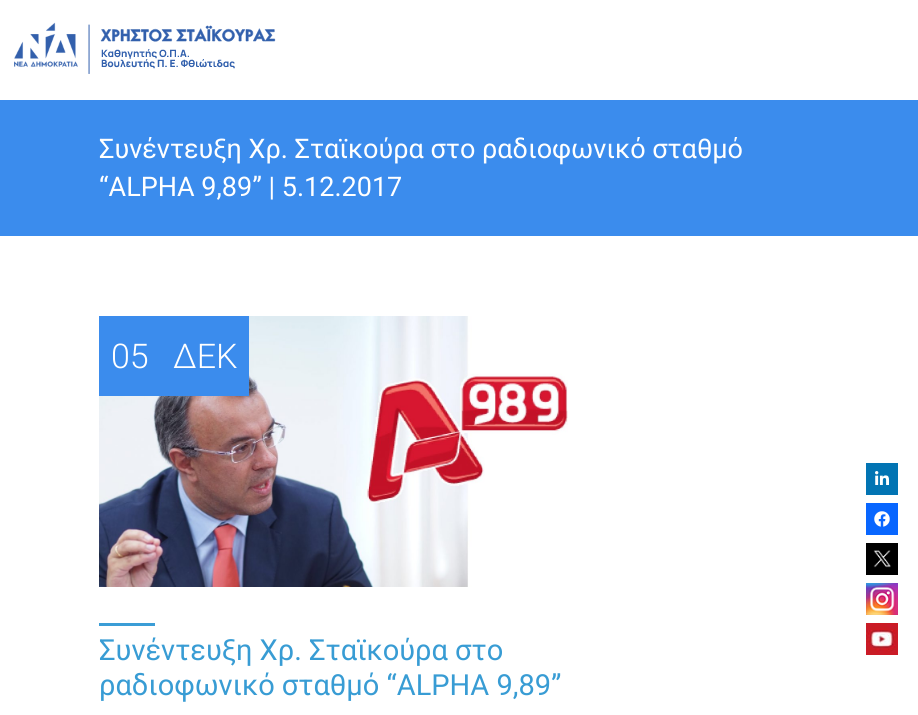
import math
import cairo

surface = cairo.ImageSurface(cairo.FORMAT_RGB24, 918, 715)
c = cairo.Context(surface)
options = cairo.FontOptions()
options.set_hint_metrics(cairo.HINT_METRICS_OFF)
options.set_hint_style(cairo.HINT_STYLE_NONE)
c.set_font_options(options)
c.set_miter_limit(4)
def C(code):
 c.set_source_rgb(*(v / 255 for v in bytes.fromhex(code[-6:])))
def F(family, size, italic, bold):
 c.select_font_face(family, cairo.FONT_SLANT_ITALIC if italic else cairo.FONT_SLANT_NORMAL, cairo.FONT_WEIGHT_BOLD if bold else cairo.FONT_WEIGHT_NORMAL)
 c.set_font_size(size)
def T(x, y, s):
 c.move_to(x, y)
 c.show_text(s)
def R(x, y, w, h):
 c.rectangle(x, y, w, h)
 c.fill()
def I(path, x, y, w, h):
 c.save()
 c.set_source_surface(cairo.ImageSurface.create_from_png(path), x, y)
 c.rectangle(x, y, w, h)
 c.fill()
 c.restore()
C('ffffff')
c.paint()
I('1.png',14,22,262,52)
C('3b8ced')
R(0,100,918,136)
F('Roboto',27,0,0)
C('ffffff')
T(99,158,'Συνέντευξη Χρ. Σταϊκούρα στο ραδιοφωνικό σταθμό')
T(99,196,'“ALPHA 9,89” | 5.12.2017')
I('2.png',99,316,469,271)
C('3b8ced')
R(99,316,150,80)
F('Roboto Light',34,0,0)
C('ffffff')
T(111,368,'05')
T(173,368,'ΔΕΚ')
C('3b9dd6')
R(99,623,56,3)
F('Roboto',29,0,0)
C('389cd4')
T(99,660,'Συνέντευξη Χρ. Σταϊκούρα στο')
T(99,695,'ραδιοφωνικό σταθμό “ALPHA 9,89”')
C('0274b3')
R(866,463,32,32)
I('3.png',875,471,14,14)
C('0866ff')
R(866,503,32,32)
I('4.png',874,511,16,16)
I('5.png',866,543,32,32)
I('6.png',866,583,32,32)
I('7.png',866,623,32,32)
surface.write_to_png('o.png')
